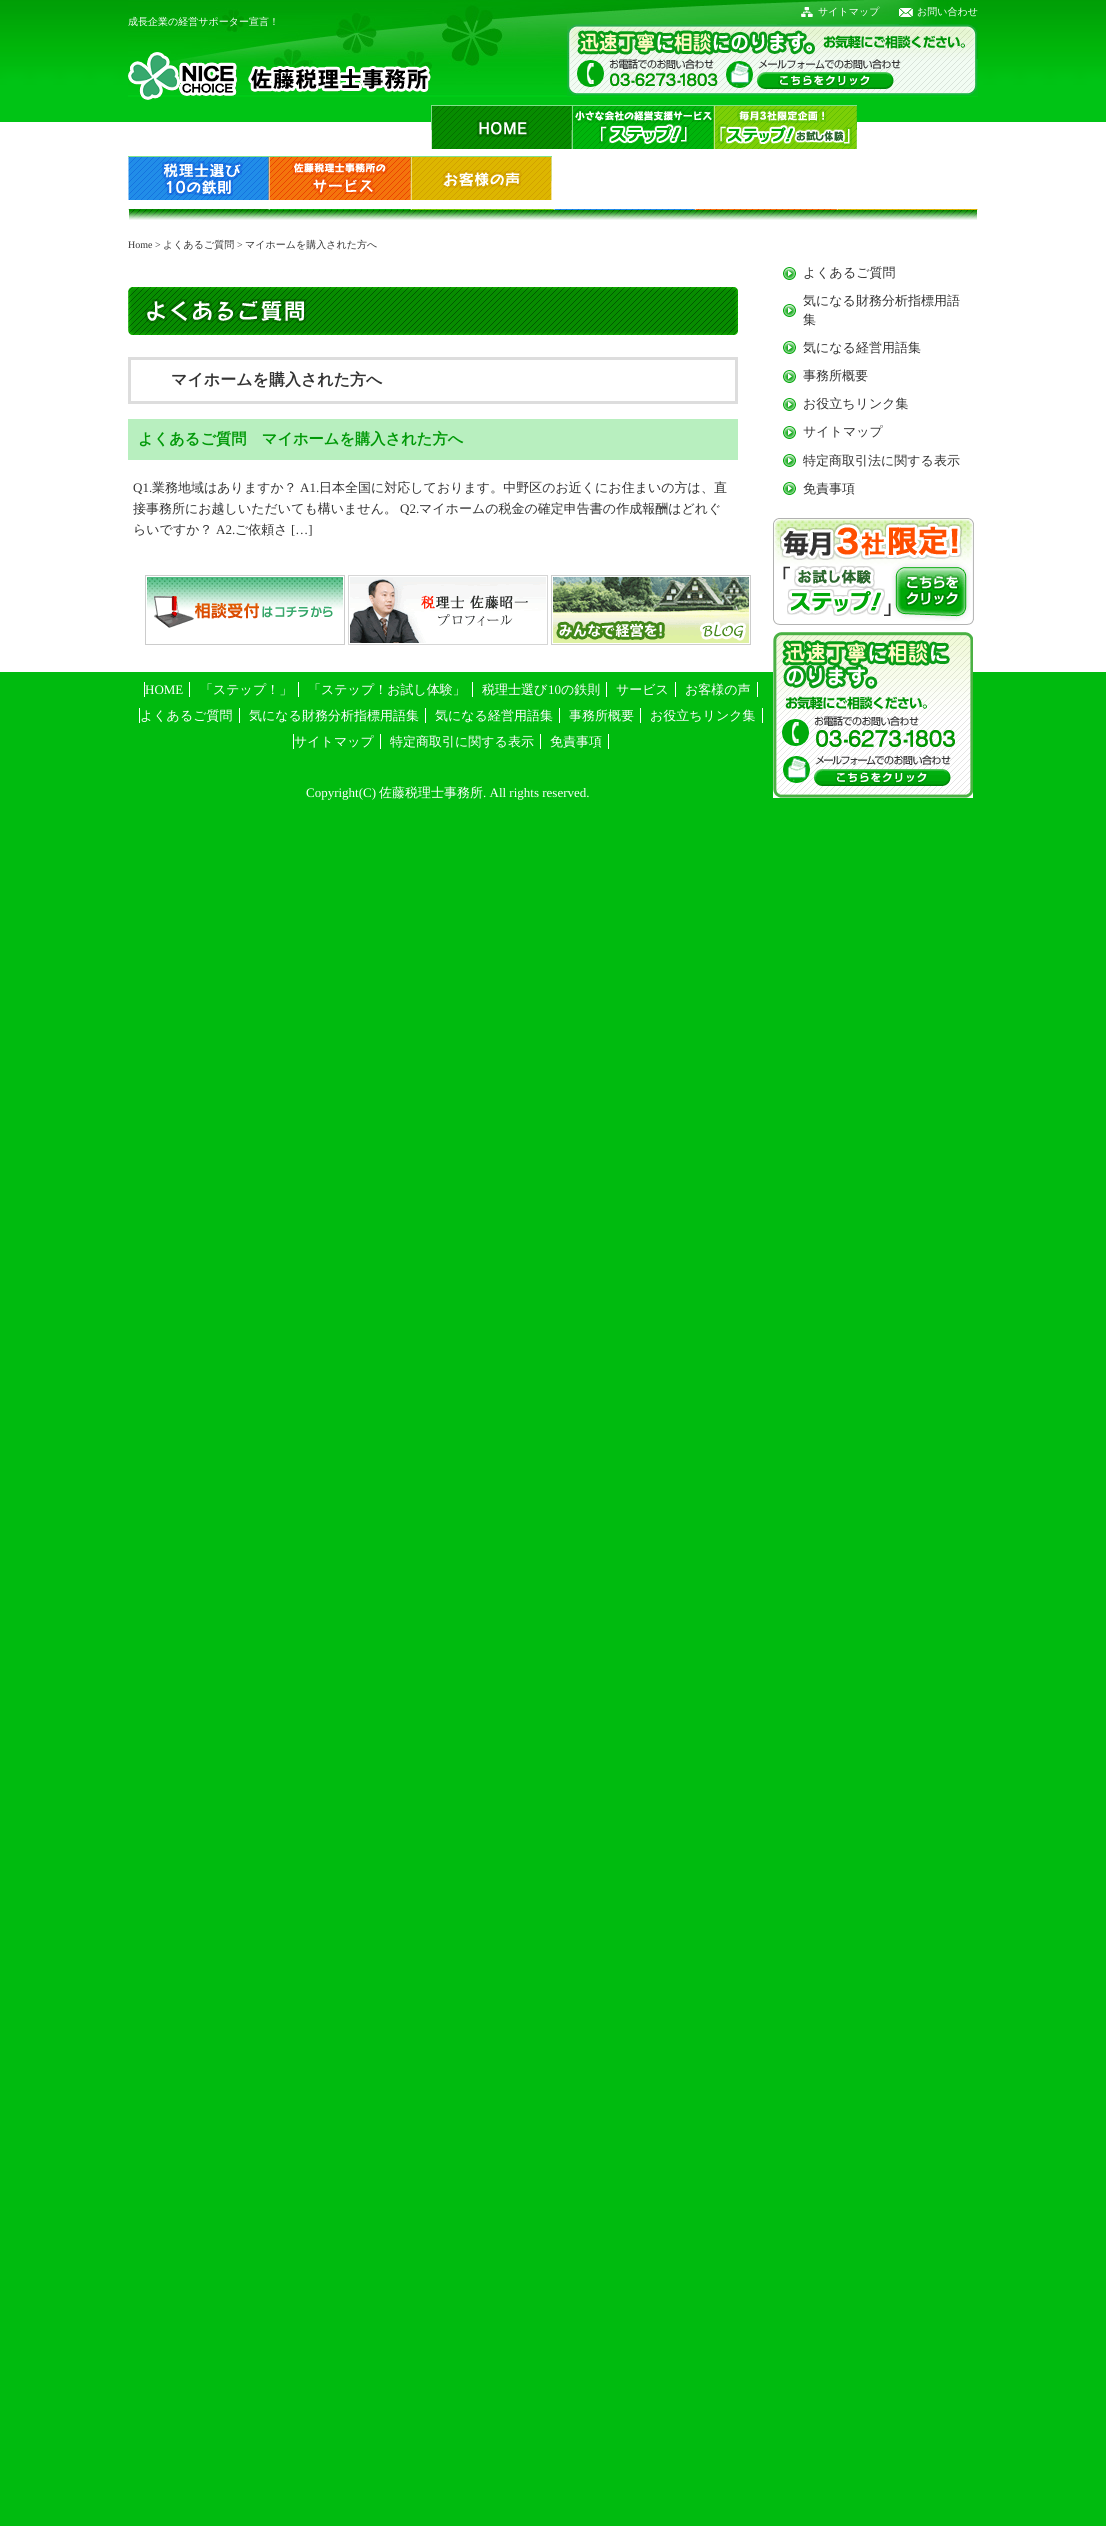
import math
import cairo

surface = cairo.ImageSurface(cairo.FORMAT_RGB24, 1106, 2526)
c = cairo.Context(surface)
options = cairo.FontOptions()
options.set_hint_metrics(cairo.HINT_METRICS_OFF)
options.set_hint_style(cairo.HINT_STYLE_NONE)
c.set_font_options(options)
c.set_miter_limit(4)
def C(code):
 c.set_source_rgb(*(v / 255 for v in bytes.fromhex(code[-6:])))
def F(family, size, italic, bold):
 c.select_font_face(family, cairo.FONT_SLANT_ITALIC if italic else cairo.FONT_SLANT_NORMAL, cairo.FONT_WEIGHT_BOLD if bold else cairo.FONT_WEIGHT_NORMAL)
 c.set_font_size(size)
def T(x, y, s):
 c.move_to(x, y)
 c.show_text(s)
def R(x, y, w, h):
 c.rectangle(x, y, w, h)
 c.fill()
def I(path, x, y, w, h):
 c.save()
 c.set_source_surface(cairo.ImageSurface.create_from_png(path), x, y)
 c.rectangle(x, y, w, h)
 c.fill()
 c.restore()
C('00bb0f')
c.paint()
I('1.png',0,0,1106,97)
I('2.png',128,0,850,97)
I('3.png',801,7,12,10)
F('WenQuanYi Zen Hei Medium',10,0,0)
C('ffffff')
T(818,15,'サイトマップ')
I('4.png',899,7,14,10)
T(917,15,'お問い合わせ')
I('5.png',567,24,411,72)
T(128,25,'成長企業の経営サポーター宣言！')
C('00c415')
R(0,97,1106,25)
I('6.png',128,52,303,48)
C('ffffff')
R(0,122,1106,550)
I('7.png',431,105,141,44)
I('8.png',572,105,142,44)
I('9.png',714,105,143,44)
I('10.png',128,156,141,44)
I('11.png',269,156,142,44)
I('12.png',411,156,141,44)
I('13.png',128,209,850,11)
F('Liberation Serif',10,0,0)
C('333333')
T(128,248,'Home >')
F('WenQuanYi Zen Hei Medium',10,0,0)
T(163,248,'よくあるご質問')
F('Liberation Serif',10,0,0)
T(237,248,'>')
F('WenQuanYi Zen Hei Medium',10,0,0)
T(245,248,'マイホームを購入された方へ')
I('14.png',128,287,610,48)
c.rectangle(129.5,358.5,607,44)
C('dddddd')
c.set_line_width(3)
c.stroke()
F('WenQuanYi Zen Hei',16,0,1)
C('333333')
T(171,385,'マイホームを購入された方へ')
C('b8efbf')
R(128,419,610,41)
F('WenQuanYi Zen Hei',15.25,0,1)
C('009907')
T(138,444,'よくあるご質問　マイホームを購入された方へ')
F('Liberation Serif',13,0,0)
C('333333')
T(133,492,'Q1.')
F('WenQuanYi Zen Hei Medium',13,0,0)
T(152,492,'業務地域はありますか？')
F('Liberation Serif',13,0,0)
T(300,492,'A1.')
F('WenQuanYi Zen Hei Medium',13,0,0)
T(319,492,'日本全国に対応しております。中野区のお近くにお住まいの方は、直')
T(133,513,'接事務所にお越しいただいても構いません。')
F('Liberation Serif',13,0,0)
T(400,513,'Q2.')
F('WenQuanYi Zen Hei Medium',13,0,0)
T(419,513,'マイホームの税金の確定申告書の作成報酬はどれぐ')
T(133,534,'らいですか？')
F('Liberation Serif',13,0,0)
T(216,534,'A2.')
F('WenQuanYi Zen Hei Medium',13,0,0)
T(235,534,'ご依頼さ')
F('Liberation Serif',13,0,0)
T(291,534,'[…]')
I('15.png',783,267,13,13)
F('WenQuanYi Zen Hei Medium',13,0,0)
T(803,277,'よくあるご質問')
I('15.png',783,304,13,13)
T(803,305,'気になる財務分析指標用語')
T(803,324,'集')
I('15.png',783,341,13,13)
T(803,352,'気になる経営用語集')
I('15.png',783,370,13,13)
T(803,380,'事務所概要')
I('15.png',783,398,13,13)
T(803,408,'お役立ちリンク集')
I('15.png',783,426,13,13)
T(803,436,'サイトマップ')
I('15.png',783,454,13,13)
T(803,465,'特定商取引法に関する表示')
I('15.png',783,482,13,13)
T(803,493,'免責事項')
I('16.png',773,518,201,107)
I('17.png',773,632,200,166)
I('18.png',145,575,200,70)
I('19.png',348,575,200,70)
I('20.png',551,575,200,70)
F('Liberation Serif',13,0,0)
C('ffffff')
T(145,694,'HOME')
R(144,682,1,15)
R(189,682,1,15)
F('WenQuanYi Zen Hei Medium',13,0,0)
T(200,694,'「ステップ！」')
R(298,682,1,15)
T(308,694,'「ステップ！お試し体験」')
T(482,694,'税理士選び')
R(472,682,1,15)
F('Liberation Serif',13,0,0)
T(548,694,'10')
F('WenQuanYi Zen Hei Medium',13,0,0)
T(561,694,'の鉄則')
R(606,682,1,15)
T(616,694,'サービス')
R(675,682,1,15)
T(685,694,'お客様の声')
R(757,682,1,15)
T(140,720,'よくあるご質問')
R(139,708,1,15)
R(239,708,1,15)
T(249,720,'気になる財務分析指標用語集')
R(425,708,1,15)
T(435,720,'気になる経営用語集')
R(559,708,1,15)
T(569,720,'事務所概要')
R(640,708,1,15)
T(650,720,'お役立ちリンク集')
R(762,708,1,15)
T(294,746,'サイトマップ')
R(293,734,1,15)
R(380,734,1,15)
T(390,746,'特定商取引に関する表示')
R(540,734,1,15)
T(550,746,'免責事項')
R(608,734,1,15)
F('Liberation Serif',13,0,0)
T(306,797,'Copyright(C)')
F('WenQuanYi Zen Hei Medium',13,0,0)
T(379,797,'佐藤税理士事務所')
F('Liberation Serif',13,0,0)
T(483,797,'. All rights reserved.')
surface.write_to_png('o.png')
